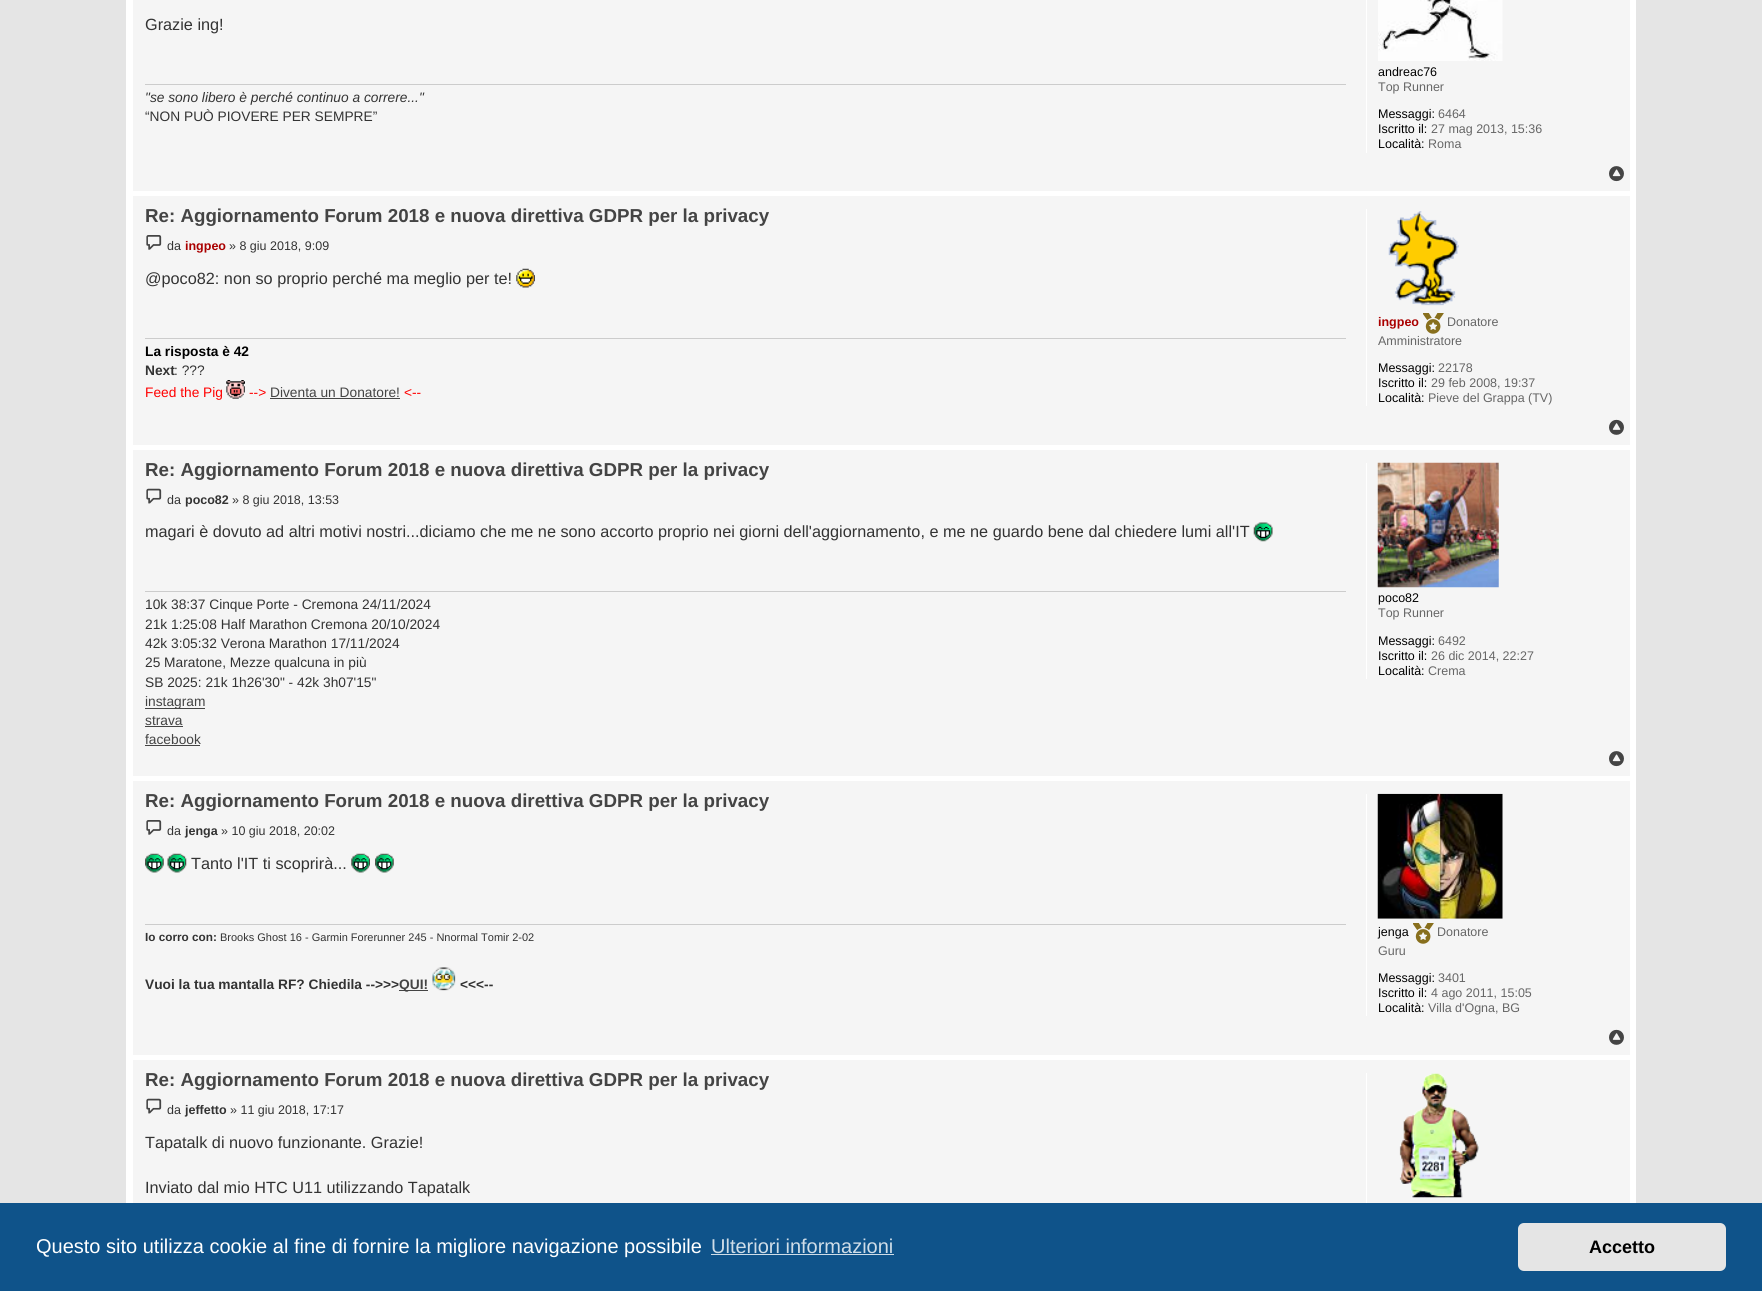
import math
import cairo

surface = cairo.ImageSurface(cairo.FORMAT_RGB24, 1762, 1291)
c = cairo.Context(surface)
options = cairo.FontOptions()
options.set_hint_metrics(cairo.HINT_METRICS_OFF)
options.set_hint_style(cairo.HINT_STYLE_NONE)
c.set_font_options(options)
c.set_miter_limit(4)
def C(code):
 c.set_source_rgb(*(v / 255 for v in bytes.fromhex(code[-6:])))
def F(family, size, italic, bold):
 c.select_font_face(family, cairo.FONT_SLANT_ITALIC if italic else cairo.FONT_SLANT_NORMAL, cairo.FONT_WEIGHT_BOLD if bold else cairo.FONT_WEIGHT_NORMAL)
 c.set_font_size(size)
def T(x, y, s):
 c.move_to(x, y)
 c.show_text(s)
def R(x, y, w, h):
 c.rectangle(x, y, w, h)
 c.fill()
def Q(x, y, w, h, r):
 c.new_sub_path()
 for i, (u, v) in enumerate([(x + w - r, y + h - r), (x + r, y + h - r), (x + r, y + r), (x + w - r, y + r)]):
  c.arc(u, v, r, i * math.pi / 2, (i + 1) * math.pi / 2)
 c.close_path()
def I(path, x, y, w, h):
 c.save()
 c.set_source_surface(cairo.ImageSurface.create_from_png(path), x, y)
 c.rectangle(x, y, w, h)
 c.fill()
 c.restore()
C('e5e5e5')
c.paint()
C('ffffff')
R(126,0,1510,1203)
C('f5f5f5')
R(133,0,1497,191)
F('Liberation Sans',16.25,0,0)
C('333333')
T(145,30,'Grazie ing!')
C('cccccc')
R(145,84,1201,1)
F('Liberation Sans',13.75,1,0)
C('333333')
T(145,102,'"se sono libero è perché continuo a correre..."')
F('Liberation Sans',13.75,0,0)
T(145,121,'“NON PUÒ PIOVERE PER SEMPRE”')
C('ffffff')
R(1366,0,1,153)
I('1.png',1378,0,125,61)
F('Liberation Sans',12.5,0,0)
C('000000')
T(1378,76,'andreac76')
C('666666')
T(1378,91,'Top Runner')
C('000000')
T(1378,118,'Messaggi:')
C('666666')
T(1438,118,'6464')
C('000000')
T(1378,133,'Iscritto il:')
C('666666')
T(1431,133,'27 mag 2013, 15:36')
C('000000')
T(1378,148,'Località:')
C('666666')
T(1428,148,'Roma')
I('2.png',1609,166,15,16)
C('f5f5f5')
R(133,196,1497,249)
F('Liberation Sans',18.75,0,1)
C('444444')
T(145,222,'Re: Aggiornamento Forum 2018 e nuova direttiva GDPR per la privacy')
I('3.png',146,235,16,15)
F('Liberation Sans',12.5,0,0)
C('333333')
T(167,250,'da')
F('Liberation Sans',12.5,0,1)
C('aa0000')
T(185,250,'ingpeo')
F('Liberation Sans',12.5,0,0)
C('333333')
T(229,250,'» 8 giu 2018, 9:09')
F('Liberation Sans',16.25,0,0)
T(145,284,'@poco82: non so proprio perché ma meglio per te!')
I('4.png',516,268,19,20)
C('cccccc')
R(145,338,1201,1)
F('Liberation Sans',13.75,0,1)
C('000000')
T(145,356,'La risposta è 42')
C('333333')
T(145,375,'Next')
F('Liberation Sans',13.75,0,0)
T(174,375,': ???')
C('ff0000')
T(145,397,'Feed the Pig')
I('5.png',226,380,19,19)
T(249,397,'-->')
C('444444')
T(270,397,'Diventa un Donatore!')
R(270,398,130,1)
C('ff0000')
T(404,397,'<--')
C('ffffff')
R(1366,209,1,197)
I('6.png',1388,211,71,95)
F('Liberation Sans',12.5,0,1)
C('aa0000')
T(1378,326,'ingpeo')
I('7.png',1423,313,21,21)
F('Liberation Sans',12.5,0,0)
C('666666')
T(1447,326,'Donatore')
T(1378,345,'Amministratore')
C('000000')
T(1378,372,'Messaggi:')
C('666666')
T(1438,372,'22178')
C('000000')
T(1378,387,'Iscritto il:')
C('666666')
T(1431,387,'29 feb 2008, 19:37')
C('000000')
T(1378,402,'Località:')
C('666666')
T(1428,402,'Pieve del Grappa (TV)')
I('8.png',1609,419,15,16)
C('f5f5f5')
R(133,450,1497,326)
F('Liberation Sans',18.75,0,1)
C('444444')
T(145,476,'Re: Aggiornamento Forum 2018 e nuova direttiva GDPR per la privacy')
I('9.png',146,488,16,16)
F('Liberation Sans',12.5,0,0)
C('333333')
T(167,504,'da')
F('Liberation Sans',12.5,0,1)
T(185,504,'poco82')
F('Liberation Sans',12.5,0,0)
T(232,504,'» 8 giu 2018, 13:53')
F('Liberation Sans',16.25,0,0)
T(145,537,'magari è dovuto ad altri motivi nostri...diciamo che me ne sono accorto proprio nei giorni dell\'aggiornamento, e me ne guardo bene dal chiedere lumi all\'IT')
I('10.png',1253,522,20,20)
C('cccccc')
R(145,591,1201,1)
F('Liberation Sans',13.75,0,0)
C('333333')
T(145,609,'10k 38:37 Cinque Porte - Cremona 24/11/2024')
T(145,629,'21k 1:25:08 Half Marathon Cremona 20/10/2024')
T(145,648,'42k 3:05:32 Verona Marathon 17/11/2024')
T(145,667,'25 Maratone, Mezze qualcuna in più')
T(145,687,'SB 2025: 21k 1h26\'30" - 42k 3h07\'15"')
C('444444')
R(145,708,60,1)
T(145,706,'instagram')
T(145,725,'strava')
R(145,726,38,1)
T(145,744,'facebook')
R(145,745,55,1)
C('ffffff')
R(1366,463,1,216)
I('11.png',1377,462,122,126)
F('Liberation Sans',12.5,0,0)
C('000000')
T(1378,602,'poco82')
C('666666')
T(1378,617,'Top Runner')
C('000000')
T(1378,645,'Messaggi:')
C('666666')
T(1438,645,'6492')
C('000000')
T(1378,660,'Iscritto il:')
C('666666')
T(1431,660,'26 dic 2014, 22:27')
C('000000')
T(1378,675,'Località:')
C('666666')
T(1428,675,'Crema')
I('2.png',1609,751,15,16)
C('f5f5f5')
R(133,781,1497,274)
F('Liberation Sans',18.75,0,1)
C('444444')
T(145,807,'Re: Aggiornamento Forum 2018 e nuova direttiva GDPR per la privacy')
I('3.png',146,820,16,15)
F('Liberation Sans',12.5,0,0)
C('333333')
T(167,835,'da')
F('Liberation Sans',12.5,0,1)
T(185,835,'jenga')
F('Liberation Sans',12.5,0,0)
T(221,835,'» 10 giu 2018, 20:02')
I('12.png',145,853,19,20)
I('13.png',167,853,20,20)
F('Liberation Sans',16.25,0,0)
T(191,869,'Tanto l\'IT ti scoprirà...')
I('14.png',351,853,19,20)
I('12.png',375,853,19,20)
C('cccccc')
R(145,924,1201,1)
F('Liberation Sans',11.75,0,1)
C('333333')
T(145,941,'Io corro con:')
F('Liberation Sans',11,0,0)
T(220,941,'Brooks Ghost 16 - Garmin Forerunner 245 - Nnormal Tomir 2-02')
F('Liberation Sans',13.75,0,1)
T(145,989,'Vuoi la tua mantalla RF? Chiedila -->>>')
C('444444')
R(399,990,29,1)
T(399,989,'QUI!')
I('15.png',432,967,24,24)
C('333333')
T(460,989,'<<<--')
C('ffffff')
R(1366,794,1,222)
I('16.png',1377,793,126,126)
F('Liberation Sans',12.5,0,0)
C('000000')
T(1378,936,'jenga')
I('7.png',1413,923,21,21)
C('666666')
T(1437,936,'Donatore')
T(1378,955,'Guru')
C('000000')
T(1378,982,'Messaggi:')
C('666666')
T(1438,982,'3401')
C('000000')
T(1378,997,'Iscritto il:')
C('666666')
T(1431,997,'4 ago 2011, 15:05')
C('000000')
T(1378,1012,'Località:')
C('666666')
T(1428,1012,'Villa d\'Ogna, BG')
I('8.png',1609,1029,15,16)
C('f5f5f5')
R(133,1060,1497,143)
F('Liberation Sans',18.75,0,1)
C('444444')
T(145,1086,'Re: Aggiornamento Forum 2018 e nuova direttiva GDPR per la privacy')
I('9.png',146,1098,16,16)
F('Liberation Sans',12.5,0,0)
C('333333')
T(167,1114,'da')
F('Liberation Sans',12.5,0,1)
T(185,1114,'jeffetto')
F('Liberation Sans',12.5,0,0)
T(230,1114,'» 11 giu 2018, 17:17')
F('Liberation Sans',16.25,0,0)
T(145,1148,'Tapatalk di nuovo funzionante. Grazie!')
T(145,1193,'Inviato dal mio HTC U11 utilizzando Tapatalk')
C('ffffff')
R(1366,1073,1,130)
I('17.png',1399,1073,80,125)
C('0f538a')
R(0,1203,1762,88)
F('Liberation Sans',20,0,0)
C('ffffff')
T(36,1253,'Questo sito utilizza cookie al fine di fornire la migliore navigazione possibile')
C('cfdde8')
T(711,1253,'Ulteriori informazioni')
R(711,1254,183,1)
C('e5e5e5')
Q(1518,1223,208,48,6)
c.fill()
F('Liberation Sans',18,0,1)
C('000000')
T(1589,1253,'Accetto')
surface.write_to_png('o.png')
